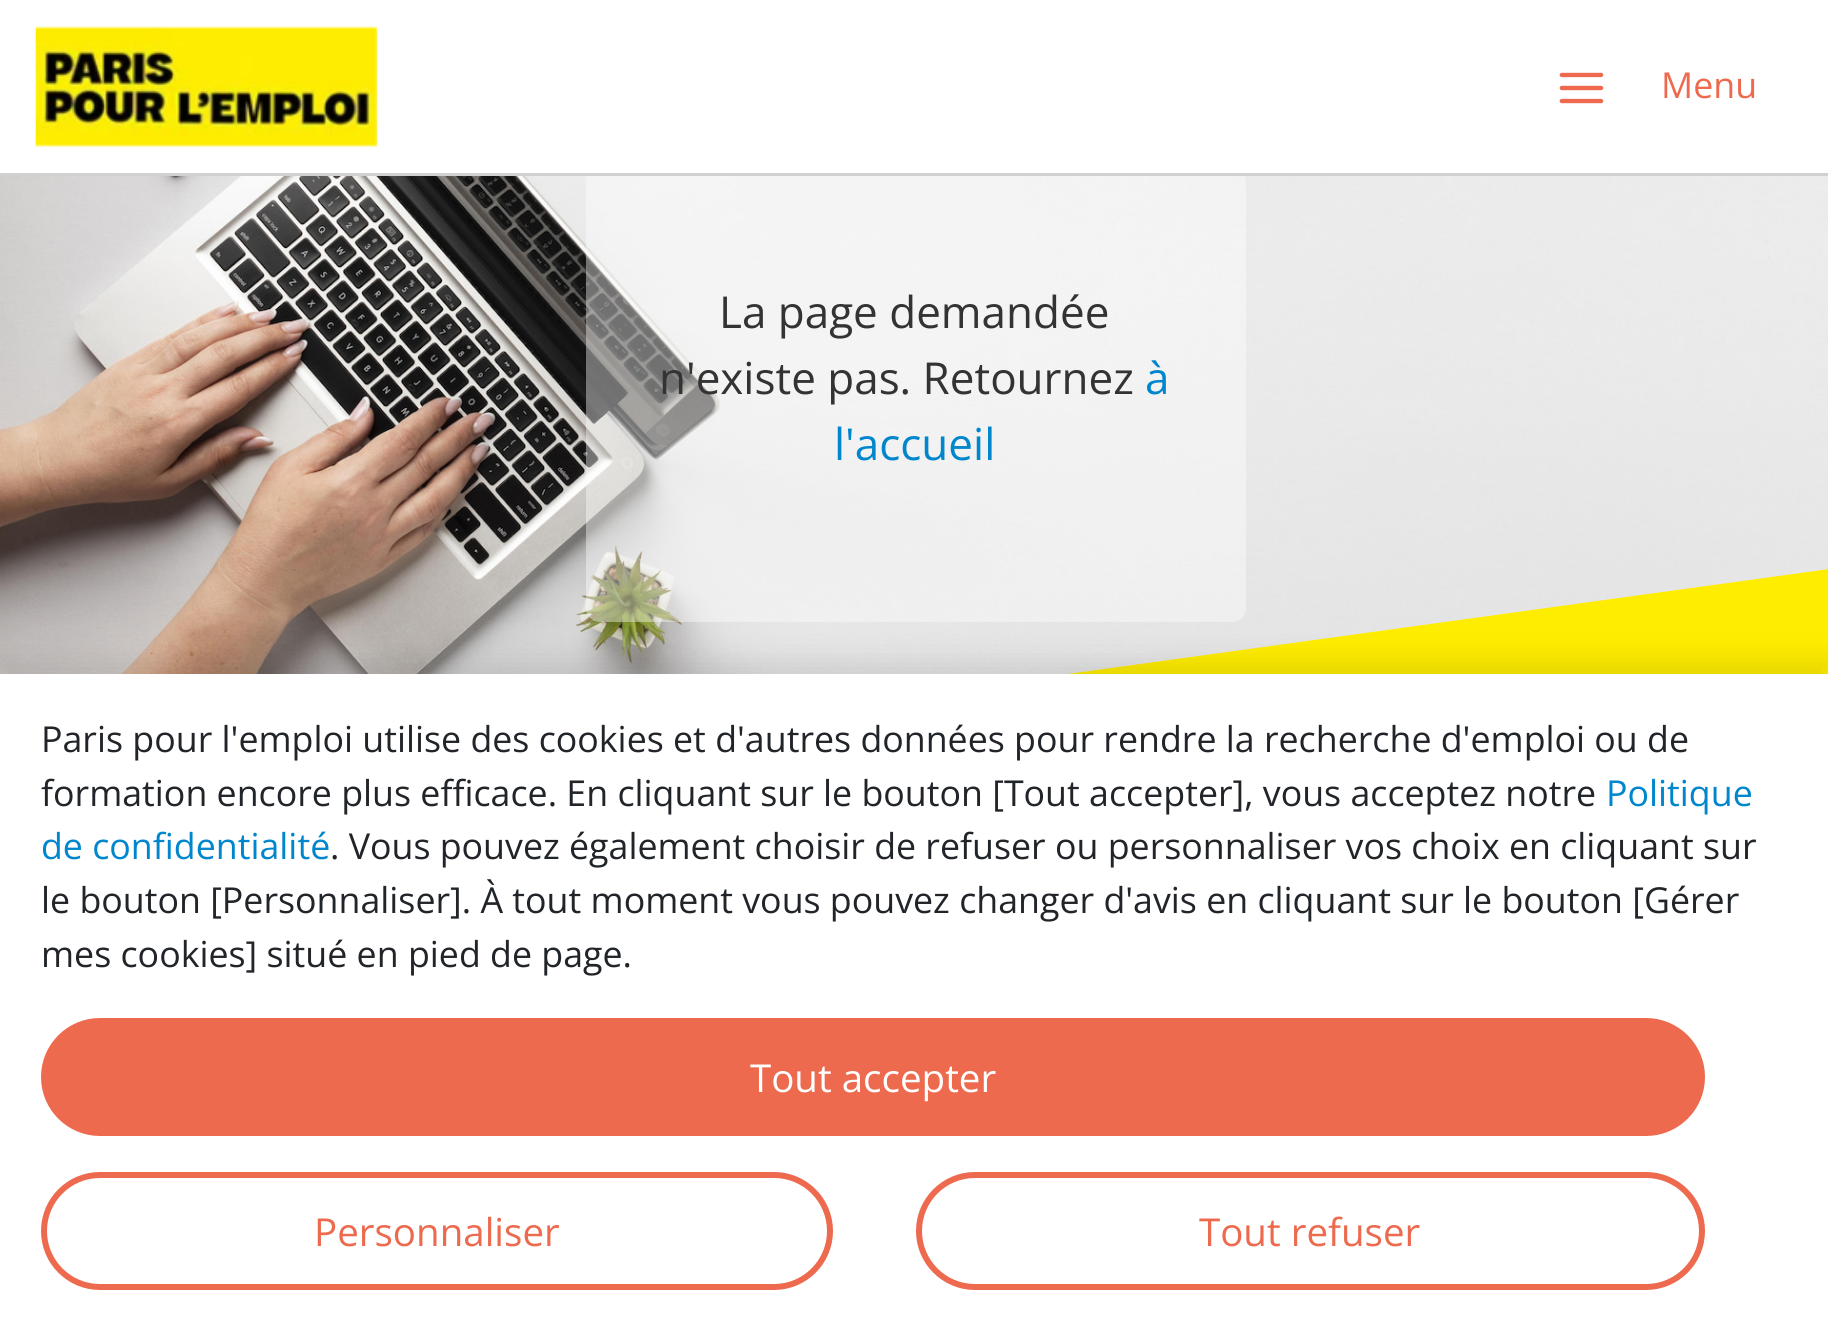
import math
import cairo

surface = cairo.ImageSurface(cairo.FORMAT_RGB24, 1828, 1330)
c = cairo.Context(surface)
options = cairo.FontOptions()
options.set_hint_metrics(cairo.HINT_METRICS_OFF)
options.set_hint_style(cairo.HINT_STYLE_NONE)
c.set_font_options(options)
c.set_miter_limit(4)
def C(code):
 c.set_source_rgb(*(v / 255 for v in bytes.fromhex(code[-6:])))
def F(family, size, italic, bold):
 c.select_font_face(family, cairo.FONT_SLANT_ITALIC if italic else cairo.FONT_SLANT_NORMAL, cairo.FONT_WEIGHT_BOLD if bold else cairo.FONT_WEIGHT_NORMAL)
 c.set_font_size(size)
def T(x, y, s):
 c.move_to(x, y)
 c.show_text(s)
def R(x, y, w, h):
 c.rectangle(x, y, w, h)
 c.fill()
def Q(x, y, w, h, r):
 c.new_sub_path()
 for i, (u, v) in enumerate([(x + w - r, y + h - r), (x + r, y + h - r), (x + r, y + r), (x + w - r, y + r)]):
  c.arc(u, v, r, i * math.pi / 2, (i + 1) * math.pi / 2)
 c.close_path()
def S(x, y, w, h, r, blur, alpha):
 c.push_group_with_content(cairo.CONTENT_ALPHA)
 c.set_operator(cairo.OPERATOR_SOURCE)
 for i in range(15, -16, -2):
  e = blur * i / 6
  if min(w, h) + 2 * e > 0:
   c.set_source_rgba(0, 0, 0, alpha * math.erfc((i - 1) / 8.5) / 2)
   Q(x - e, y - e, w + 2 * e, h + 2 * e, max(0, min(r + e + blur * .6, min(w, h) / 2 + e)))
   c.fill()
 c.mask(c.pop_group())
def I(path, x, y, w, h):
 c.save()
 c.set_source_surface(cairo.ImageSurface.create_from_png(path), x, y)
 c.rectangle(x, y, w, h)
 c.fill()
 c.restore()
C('ffffff')
c.paint()
I('3.png',0,176,1828,498)
c.set_source_rgba(1,1,1,0.4)
Q(586,168,660,454,14)
c.fill()
C('d1d1d1')
R(0,173,1828,3)
I('1.png',35,26,342,121)
I('2.png',1559,72,45,32)
F('Open Sans',35.75,0,0)
C('ed6a4f')
T(1661,98,'Menu')
F('Open Sans',44,0,0)
C('333333')
T(719,328,'La page demandée')
T(659,394,'n\'existe pas. Retournez')
C('0086cc')
T(1145,394,'à')
T(834,460,'l\'accueil')
C('ffed00')
c.new_path()
c.move_to(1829,679)
c.line_to(1031,679)
c.line_to(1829,569)
c.close_path()
c.fill()
C('000000')
S(0,660,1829,657,0,14,.1)
C('ffffff')
R(0,674,1828,656)
F('Open Sans',35.75,0,0)
C('212529')
T(41,752,'Paris pour l\'emploi utilise des cookies et d\'autres données pour rendre la recherche d\'emploi ou de')
T(41,806,'formation encore plus efficace. En cliquant sur le bouton [Tout accepter], vous acceptez notre')
C('0086cc')
T(1606,806,'Politique')
T(41,859,'de confidentialité')
C('212529')
T(330,859,'. Vous pouvez également choisir de refuser ou personnaliser vos choix en cliquant sur')
T(41,913,'le bouton [Personnaliser]. À tout moment vous pouvez changer d\'avis en cliquant sur le bouton [Gérer')
T(41,967,'mes cookies] situé en pied de page.')
C('ed6a4f')
Q(44,1021,1658,112,56)
c.fill_preserve()
c.set_line_width(6)
c.stroke()
F('Open Sans',38.5,0,0)
C('ffffff')
T(750,1092,'Tout accepter')
Q(44,1175,786,112,56)
C('ed6a4f')
c.stroke()
T(314,1246,'Personnaliser')
Q(919,1175,783,112,56)
c.stroke()
T(1199,1246,'Tout refuser')
surface.write_to_png('o.png')
